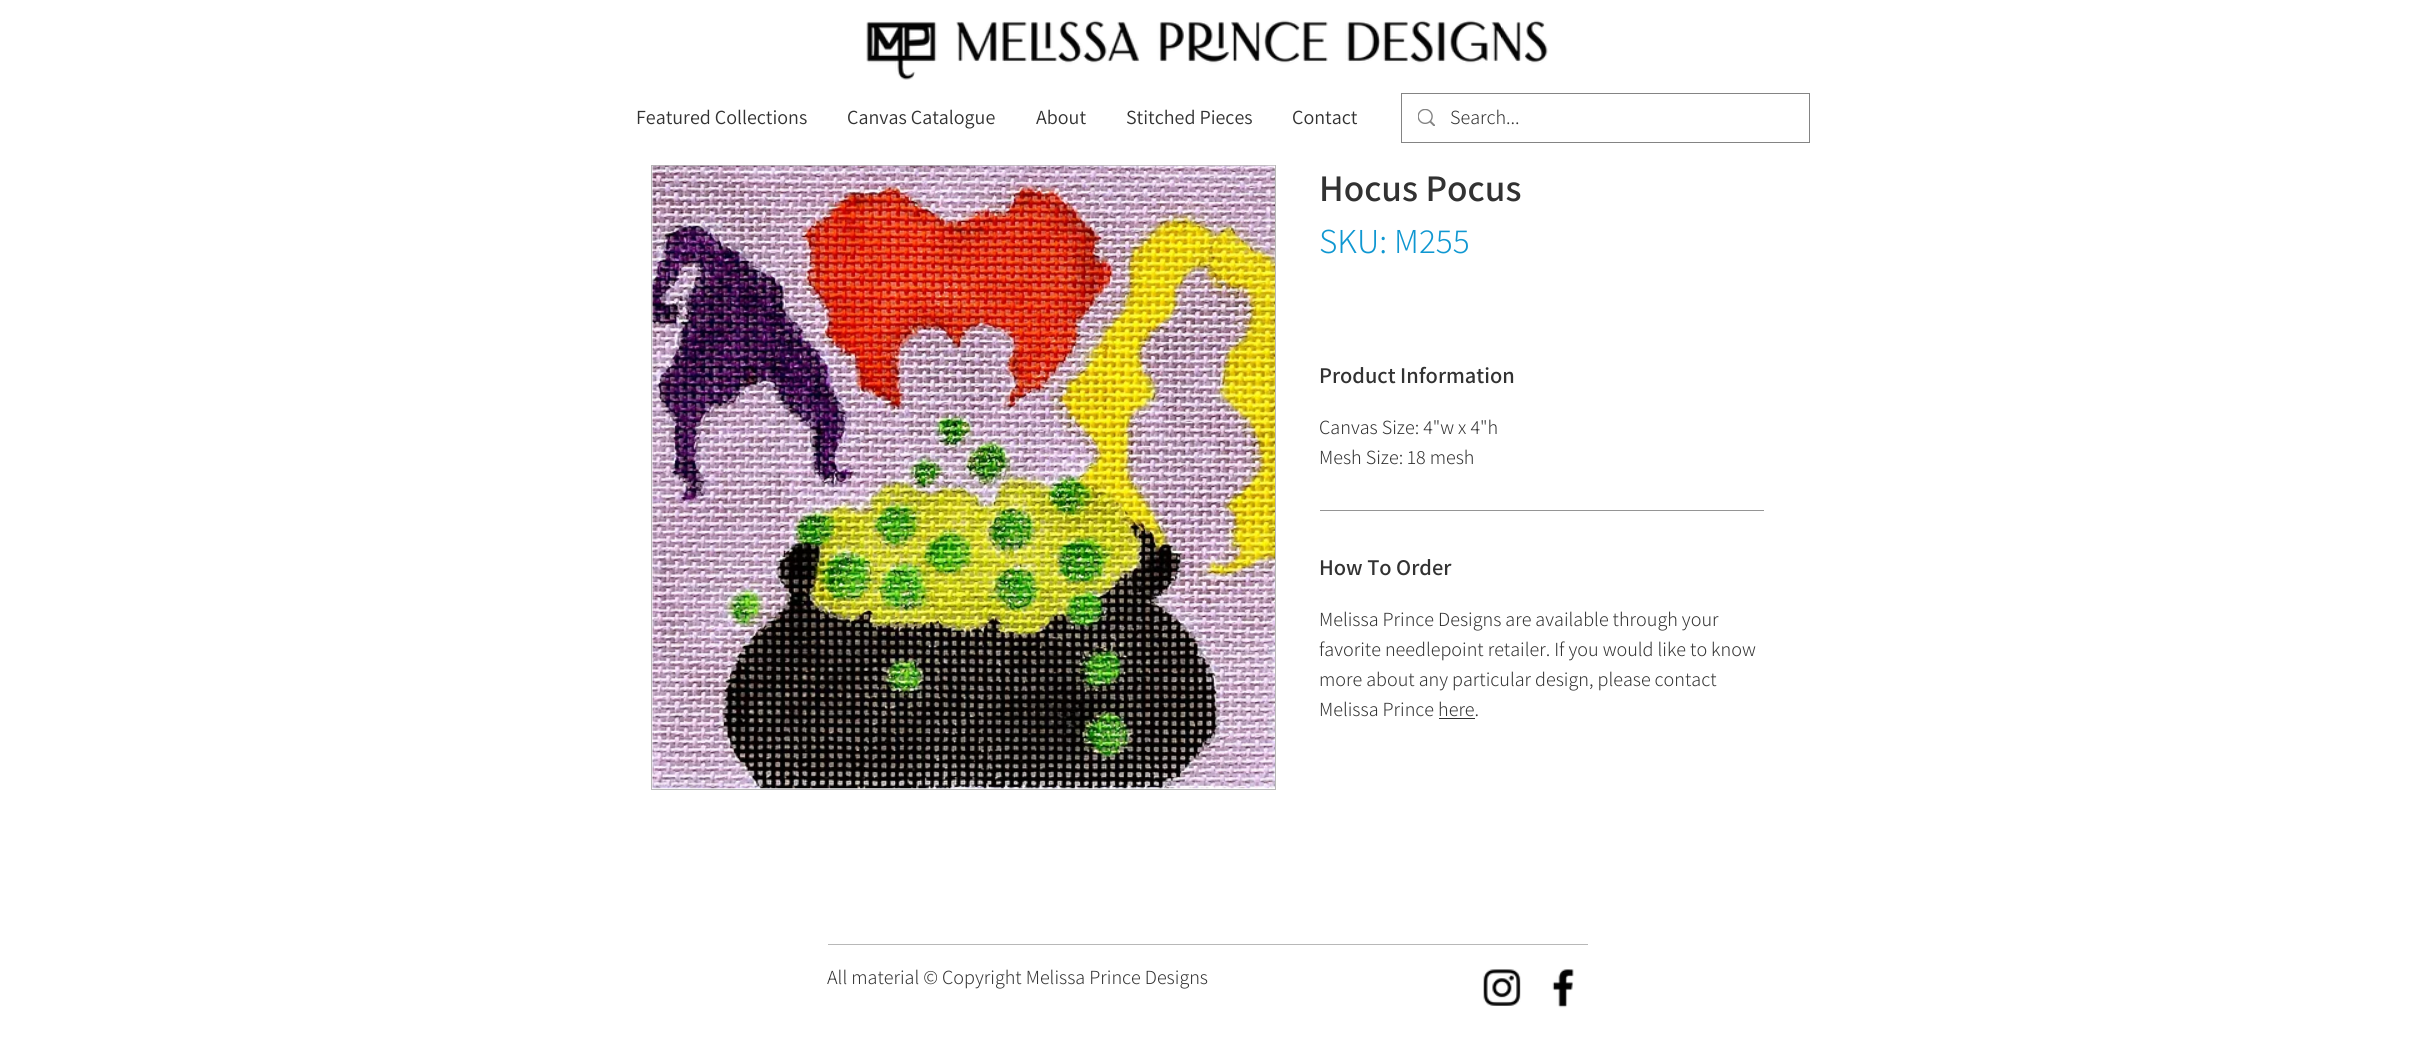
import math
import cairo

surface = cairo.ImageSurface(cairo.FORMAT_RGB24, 2413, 1061)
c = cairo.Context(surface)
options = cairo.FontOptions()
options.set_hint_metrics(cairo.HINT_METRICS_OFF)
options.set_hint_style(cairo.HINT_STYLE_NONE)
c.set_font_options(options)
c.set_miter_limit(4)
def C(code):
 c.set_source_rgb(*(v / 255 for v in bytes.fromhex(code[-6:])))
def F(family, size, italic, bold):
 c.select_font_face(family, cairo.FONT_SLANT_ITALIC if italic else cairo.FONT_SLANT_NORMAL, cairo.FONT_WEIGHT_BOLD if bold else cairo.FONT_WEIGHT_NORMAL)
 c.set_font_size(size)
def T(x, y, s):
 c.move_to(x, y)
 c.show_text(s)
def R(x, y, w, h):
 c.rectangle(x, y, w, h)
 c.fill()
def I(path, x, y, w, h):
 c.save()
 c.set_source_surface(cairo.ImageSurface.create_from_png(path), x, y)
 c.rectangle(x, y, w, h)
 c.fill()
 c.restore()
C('ffffff')
c.paint()
I('1.png',866,20,682,60)
F('Assistant',20,0,0)
C('323232')
T(636,124,'Featured Collections')
T(847,124,'Canvas Catalogue')
T(1036,124,'About')
T(1126,124,'Stitched Pieces')
T(1292,124,'Contact')
c.rectangle(1401.5,93.5,408,49)
C('848484')
c.set_line_width(1)
c.stroke()
I('2.png',1418,109,17,17)
F('Assistant Light',20,0,0)
C('323232')
T(1450,124,'Search...')
c.rectangle(651.5,165.5,624,624)
C('b8b8b8')
c.stroke()
I('3.png',652,165,623,624)
F('Assistant SemiBold',37.5,0,0)
C('323232')
T(1319,201,'Hocus Pocus')
F('Assistant Light',35,0,0)
C('0f97d1')
T(1319,253,'SKU: M255')
C('959595')
R(1320,510,444,1)
F('Assistant SemiBold',22.5,0,0)
C('323232')
T(1319,383,'Product Information')
F('Assistant Light',20,0,0)
T(1319,434,'Canvas Size: 4"w x 4"h')
T(1319,464,'Mesh Size: 18 mesh')
F('Assistant SemiBold',22.5,0,0)
T(1319,575,'How To Order')
F('Assistant Light',20,0,0)
T(1319,626,'Melissa Prince Designs are available through your')
T(1319,656,'favorite needlepoint retailer. If you would like to know')
T(1319,686,'more about any particular design, please contact')
T(1319,716,'Melissa Prince here.')
R(1439,718,36,1)
C('b8b8b8')
R(828,944,760,1)
C('323232')
T(827,984,'All material © Copyright Melissa Prince Designs')
I('4.png',1483,969,38,37)
I('5.png',1552,969,22,39)
surface.write_to_png('o.png')
